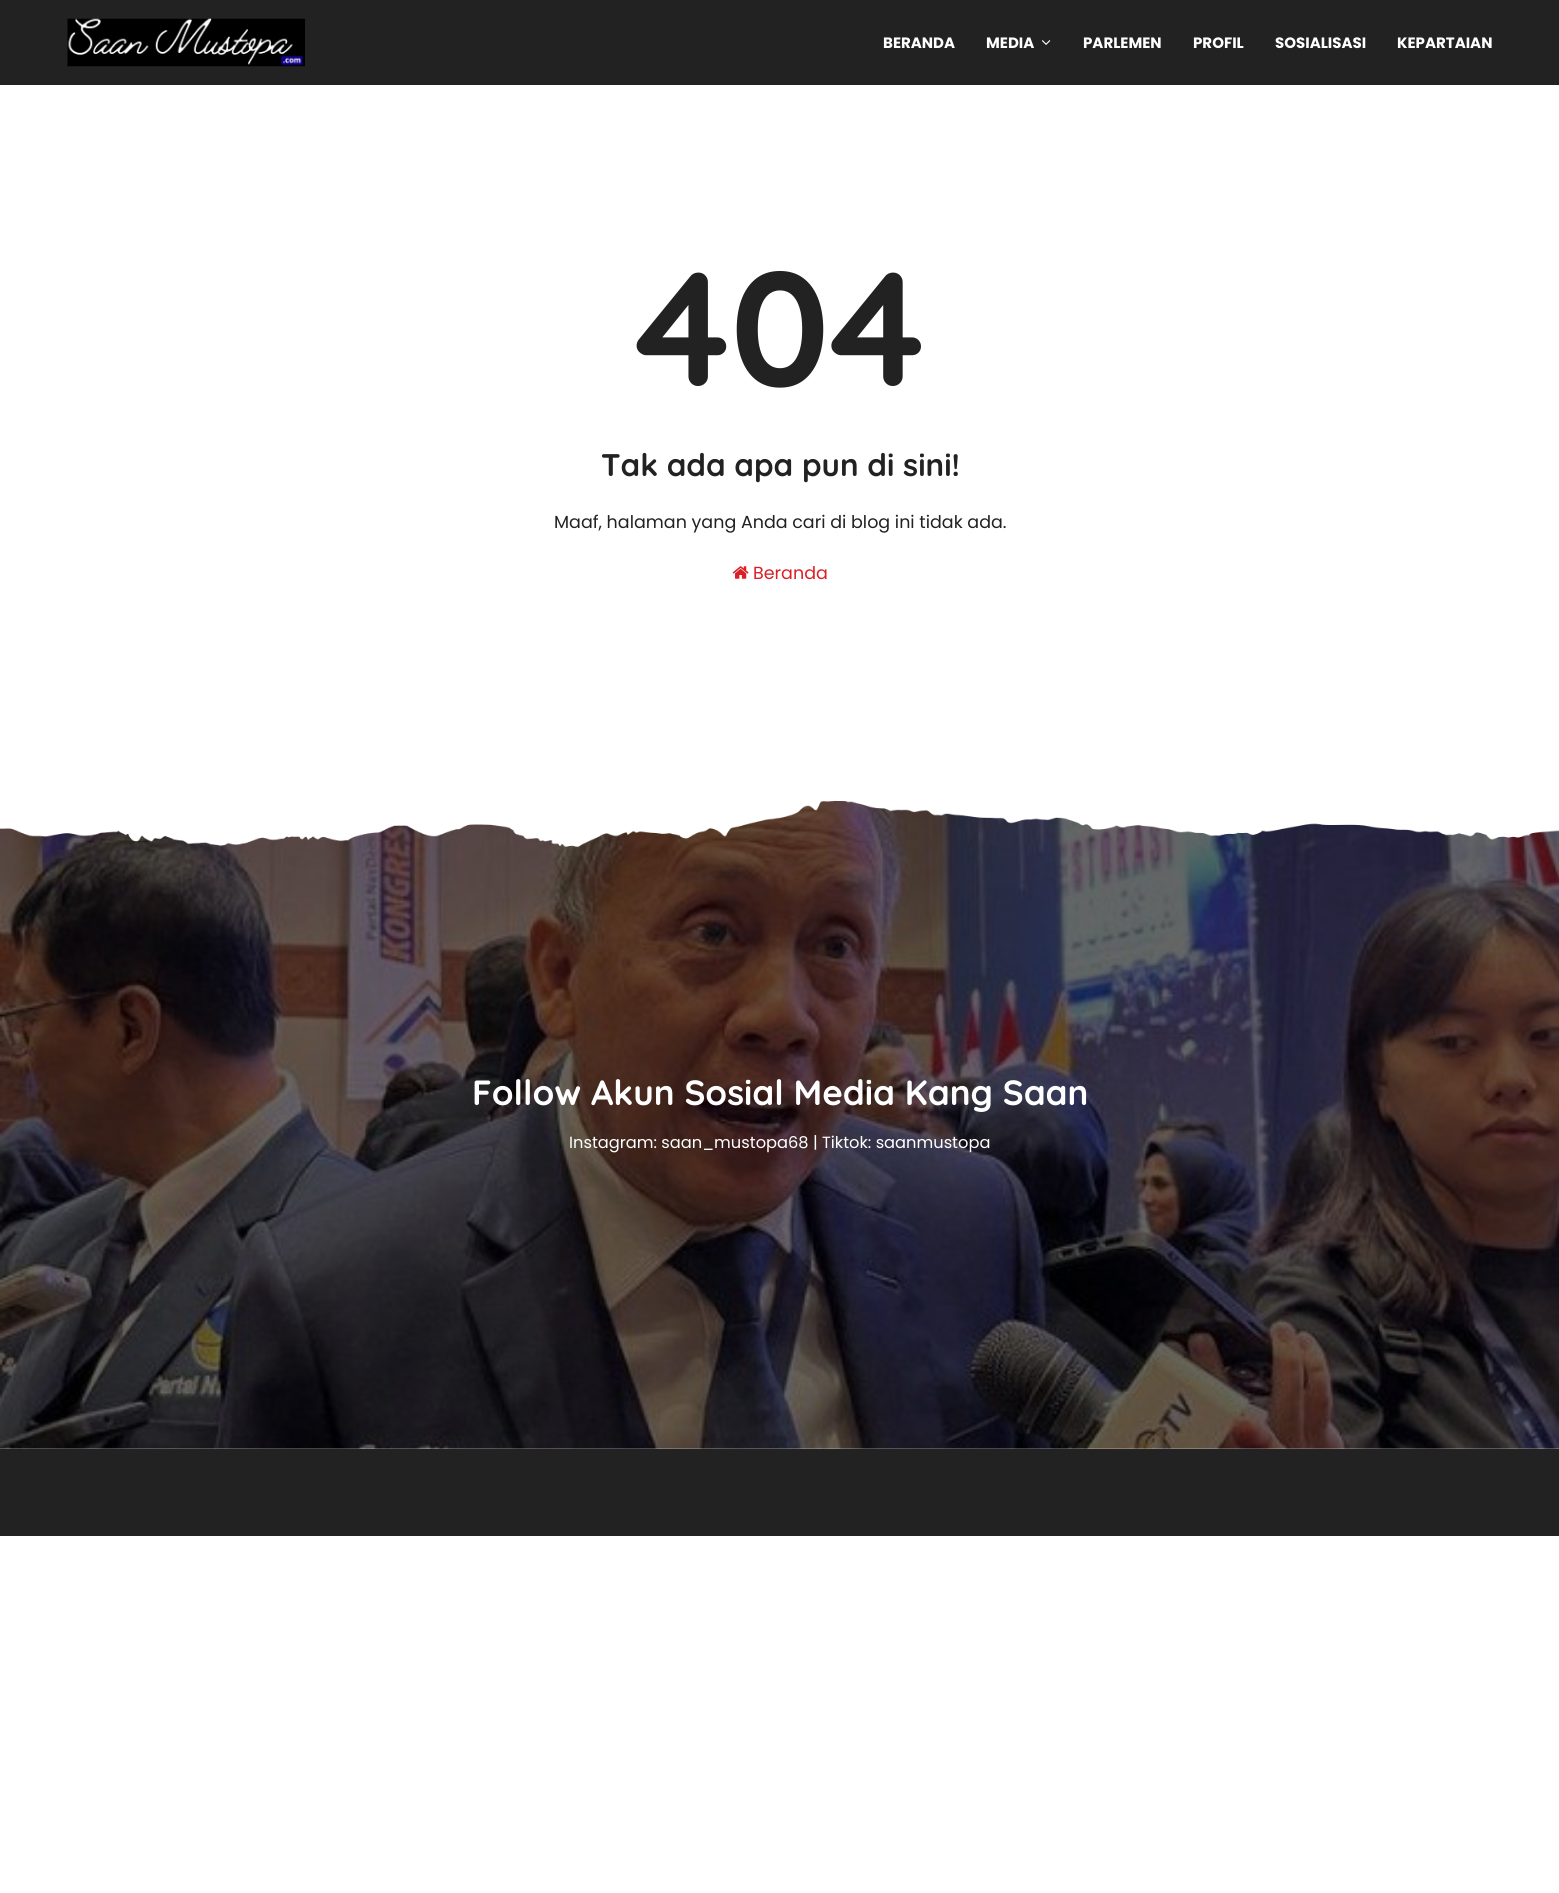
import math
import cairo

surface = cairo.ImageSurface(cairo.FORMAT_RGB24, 1559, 1893)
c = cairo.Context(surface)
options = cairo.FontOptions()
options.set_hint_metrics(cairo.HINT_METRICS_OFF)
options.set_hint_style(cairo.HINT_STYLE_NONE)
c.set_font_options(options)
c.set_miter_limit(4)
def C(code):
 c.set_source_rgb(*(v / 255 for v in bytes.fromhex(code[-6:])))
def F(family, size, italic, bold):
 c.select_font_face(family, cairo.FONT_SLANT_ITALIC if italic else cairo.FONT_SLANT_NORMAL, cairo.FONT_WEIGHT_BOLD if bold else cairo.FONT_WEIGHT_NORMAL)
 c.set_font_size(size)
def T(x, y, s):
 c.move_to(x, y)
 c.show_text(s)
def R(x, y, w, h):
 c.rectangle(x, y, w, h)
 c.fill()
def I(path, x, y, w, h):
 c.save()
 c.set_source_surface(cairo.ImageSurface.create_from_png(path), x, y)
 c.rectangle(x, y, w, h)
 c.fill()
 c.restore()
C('ffffff')
c.paint()
C('222222')
R(0,0,1559,85)
I('1.png',67,18,238,49)
F('Poppins',15,0,1)
C('ffffff')
T(883,48,'BERANDA')
T(986,48,'MEDIA')
I('2.png',1041,40,10,5)
T(1083,48,'PARLEMEN')
T(1193,48,'PROFIL')
T(1275,48,'SOSIALISASI')
T(1397,48,'KEPARTAIAN')
F('Quicksand',162,0,1)
C('222222')
T(635,386,'404')
F('Quicksand',31.25,0,1)
T(601,476,'Tak ada apa pun di sini!')
F('Poppins',17.5,0,0)
T(554,528,'Maaf, halaman yang Anda cari di blog ini tidak ada.')
I('3.png',732,566,17,13)
C('da1f26')
T(753,579,'Beranda')
I('4.png',0,800,1559,649)
I('5.png',0,796,1559,51)
F('Quicksand',35,0,1)
C('ffffff')
T(472,1105,'Follow Akun Sosial Media Kang Saan')
F('Poppins',16.25,0,0)
T(569,1148,'Instagram: saan_mustopa68 | Tiktok: saanmustopa')
C('222222')
R(0,1449,1559,87)
surface.write_to_png('o.png')
